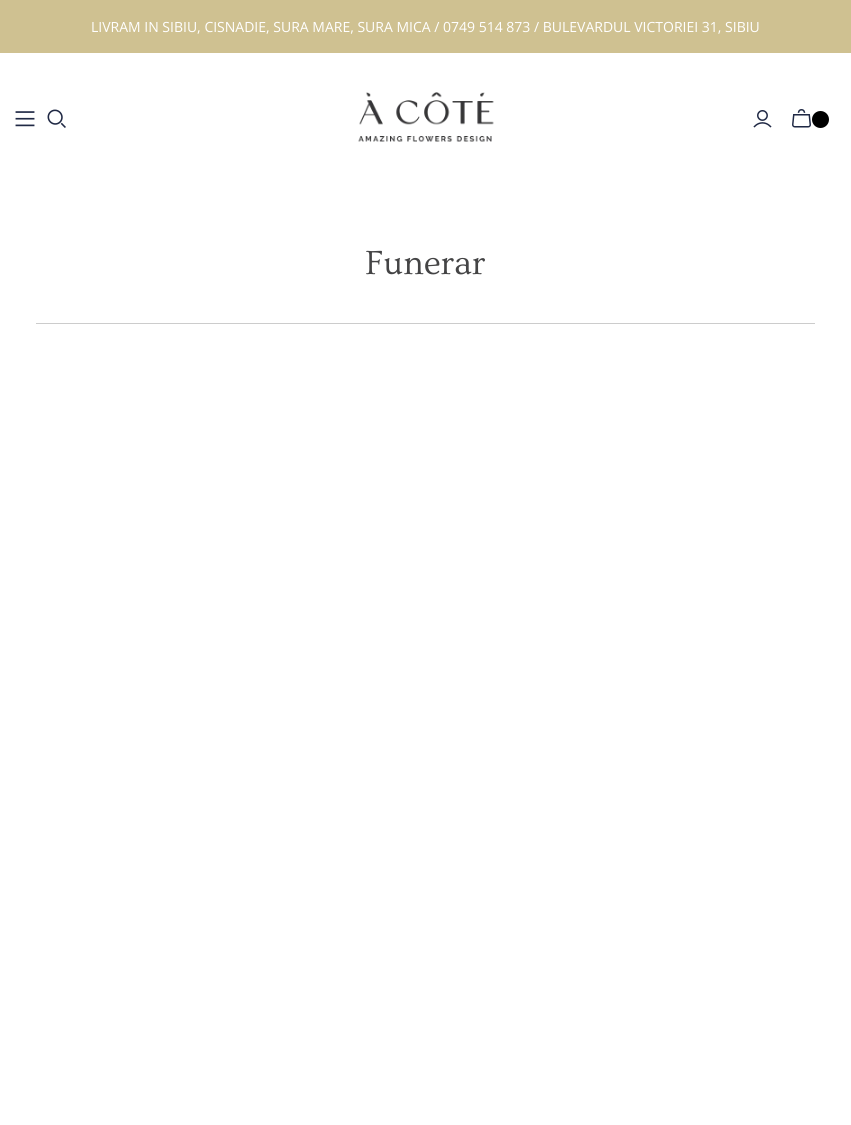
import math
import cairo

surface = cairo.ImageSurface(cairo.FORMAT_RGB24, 851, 1125)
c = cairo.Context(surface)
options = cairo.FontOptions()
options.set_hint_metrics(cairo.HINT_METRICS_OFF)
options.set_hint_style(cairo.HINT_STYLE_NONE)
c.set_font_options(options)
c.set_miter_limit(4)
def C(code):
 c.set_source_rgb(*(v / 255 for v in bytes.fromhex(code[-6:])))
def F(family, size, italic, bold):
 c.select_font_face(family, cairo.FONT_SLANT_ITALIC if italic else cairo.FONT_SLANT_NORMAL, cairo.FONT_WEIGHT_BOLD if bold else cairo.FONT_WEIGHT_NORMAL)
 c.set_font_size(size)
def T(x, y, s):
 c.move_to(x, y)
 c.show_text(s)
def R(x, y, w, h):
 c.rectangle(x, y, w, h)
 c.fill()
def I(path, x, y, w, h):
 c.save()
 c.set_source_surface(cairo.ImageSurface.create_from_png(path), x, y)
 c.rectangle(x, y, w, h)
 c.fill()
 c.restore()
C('ffffff')
c.paint()
C('cfc191')
R(0,0,851,53)
F('Open Sans',14,0,0)
C('ffffff')
T(91,32,'LIVRAM IN SIBIU, CISNADIE, SURA MARE, SURA MICA / 0749 514 873 / BULEVARDUL VICTORIEI 31, SIBIU')
I('1.png',358,92,136,50)
I('2.png',15,111,20,16)
I('3.png',47,109,19,19)
I('4.png',753,110,19,18)
I('5.png',792,109,19,19)
C('000000')
c.arc(820.5,119.5,8.5,0,2 * math.pi)
c.fill()
C('cccccc')
R(36,323,779,1)
F('Ovo',35,0,0)
C('444445')
T(365,274,'Funerar')
surface.write_to_png('o.png')
